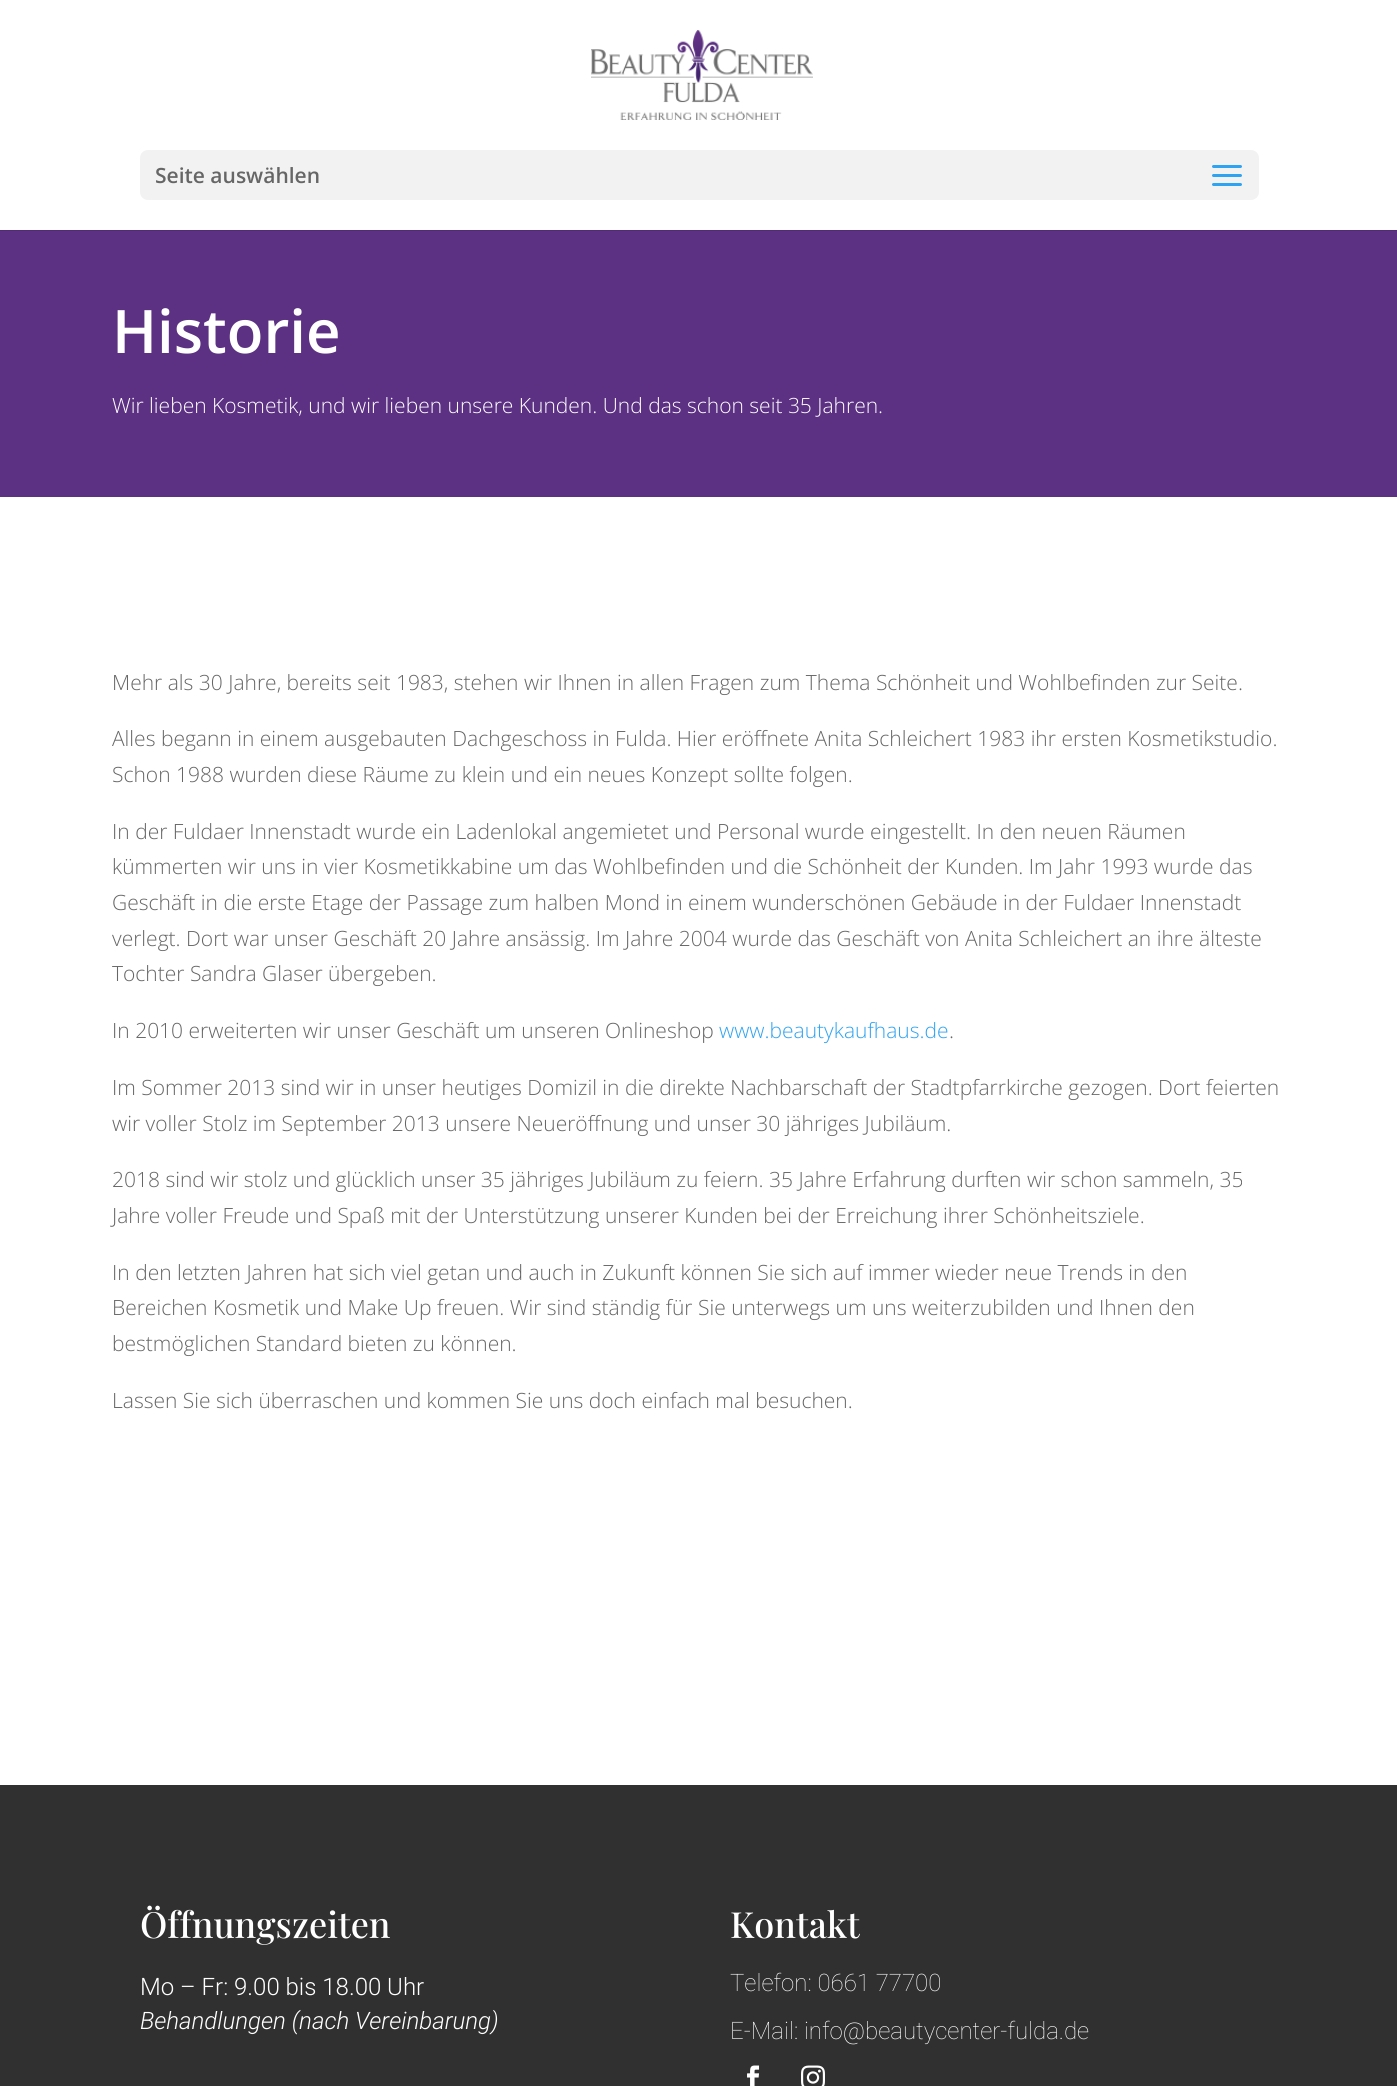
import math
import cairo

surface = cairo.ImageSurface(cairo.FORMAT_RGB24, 1397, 2086)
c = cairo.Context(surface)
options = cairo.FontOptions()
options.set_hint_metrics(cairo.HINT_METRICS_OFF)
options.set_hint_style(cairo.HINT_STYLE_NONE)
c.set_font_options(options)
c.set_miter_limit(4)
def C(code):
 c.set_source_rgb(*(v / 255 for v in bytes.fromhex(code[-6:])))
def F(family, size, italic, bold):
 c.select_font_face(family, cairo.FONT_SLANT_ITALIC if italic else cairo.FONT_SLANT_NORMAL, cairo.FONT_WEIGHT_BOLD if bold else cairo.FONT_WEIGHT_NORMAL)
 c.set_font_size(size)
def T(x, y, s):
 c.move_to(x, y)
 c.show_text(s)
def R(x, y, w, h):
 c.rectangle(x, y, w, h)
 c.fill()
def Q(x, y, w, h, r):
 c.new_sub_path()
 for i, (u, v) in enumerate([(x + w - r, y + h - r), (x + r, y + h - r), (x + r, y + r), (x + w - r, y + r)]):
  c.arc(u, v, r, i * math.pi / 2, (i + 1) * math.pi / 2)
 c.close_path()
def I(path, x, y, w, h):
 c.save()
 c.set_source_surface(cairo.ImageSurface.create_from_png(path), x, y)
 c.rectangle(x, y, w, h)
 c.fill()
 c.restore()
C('ffffff')
c.paint()
C('532b75')
R(0,230,1397,1)
I('1.png',591,30,222,90)
C('f2f2f2')
Q(140,150,1119,50,8)
c.fill()
F('Open Sans SemiBold',21,0,0)
C('666666')
T(155,183,'Seite auswählen')
I('2.png',1212,165,30,21)
C('5c3082')
R(0,231,1397,266)
F('Open Sans SemiBold',60,0,0)
C('ffffff')
T(112,353,'Historie')
F('Open Sans Light',21,0,0)
T(112,413,'Wir lieben Kosmetik, und wir lieben unsere Kunden. Und das schon seit 35 Jahren.')
C('666666')
T(112,690,'Mehr als 30 Jahre, bereits seit 1983, stehen wir Ihnen in allen Fragen zum Thema Schönheit und Wohlbefinden zur Seite.')
T(112,746,'Alles begann in einem ausgebauten Dachgeschoss in Fulda. Hier eröffnete Anita Schleichert 1983 ihr ersten Kosmetikstudio.')
T(112,782,'Schon 1988 wurden diese Räume zu klein und ein neues Konzept sollte folgen.')
T(112,839,'In der Fuldaer Innenstadt wurde ein Ladenlokal angemietet und Personal wurde eingestellt. In den neuen Räumen')
T(112,874,'kümmerten wir uns in vier Kosmetikkabine um das Wohlbefinden und die Schönheit der Kunden. Im Jahr 1993 wurde das')
T(112,910,'Geschäft in die erste Etage der Passage zum halben Mond in einem wunderschönen Gebäude in der Fuldaer Innenstadt')
T(112,946,'verlegt. Dort war unser Geschäft 20 Jahre ansässig. Im Jahre 2004 wurde das Geschäft von Anita Schleichert an ihre älteste')
T(112,981,'Tochter Sandra Glaser übergeben.')
T(112,1038,'In 2010 erweiterten wir unser Geschäft um unseren Onlineshop')
C('2ea3f2')
T(719,1038,'www.beautykaufhaus.de')
C('666666')
T(949,1038,'.')
T(112,1095,'Im Sommer 2013 sind wir in unser heutiges Domizil in die direkte Nachbarschaft der Stadtpfarrkirche gezogen. Dort feierten')
T(112,1131,'wir voller Stolz im September 2013 unsere Neueröffnung und unser 30 jähriges Jubiläum.')
T(112,1187,'2018 sind wir stolz und glücklich unser 35 jähriges Jubiläum zu feiern. 35 Jahre Erfahrung durften wir schon sammeln, 35')
T(112,1223,'Jahre voller Freude und Spaß mit der Unterstützung unserer Kunden bei der Erreichung ihrer Schönheitsziele.')
T(112,1280,'In den letzten Jahren hat sich viel getan und auch in Zukunft können Sie sich auf immer wieder neue Trends in den')
T(112,1315,'Bereichen Kosmetik und Make Up freuen. Wir sind ständig für Sie unterwegs um uns weiterzubilden und Ihnen den')
T(112,1351,'bestmöglichen Standard bieten zu können.')
T(112,1408,'Lassen Sie sich überraschen und kommen Sie uns doch einfach mal besuchen.')
C('303030')
R(0,1785,1397,301)
F('Playfair Display Medium',36,0,0)
C('ffffff')
T(140,1938,'Öffnungszeiten')
F('Roboto Light',24,0,0)
T(140,1995,'Mo – Fr: 9.00 bis 18.00 Uhr')
F('Roboto Light',24,1,0)
T(140,2029,'Behandlungen (nach Vereinbarung)')
F('Playfair Display Medium',36,0,0)
T(730,1938,'Kontakt')
F('Roboto Thin',24,0,0)
T(730,1991,'Telefon: 0661 77700')
T(730,2039,'E-Mail: info@beautycenter-fulda.de')
I('3.png',747,2065,13,21)
I('4.png',801,2065,24,21)
surface.write_to_png('o.png')
